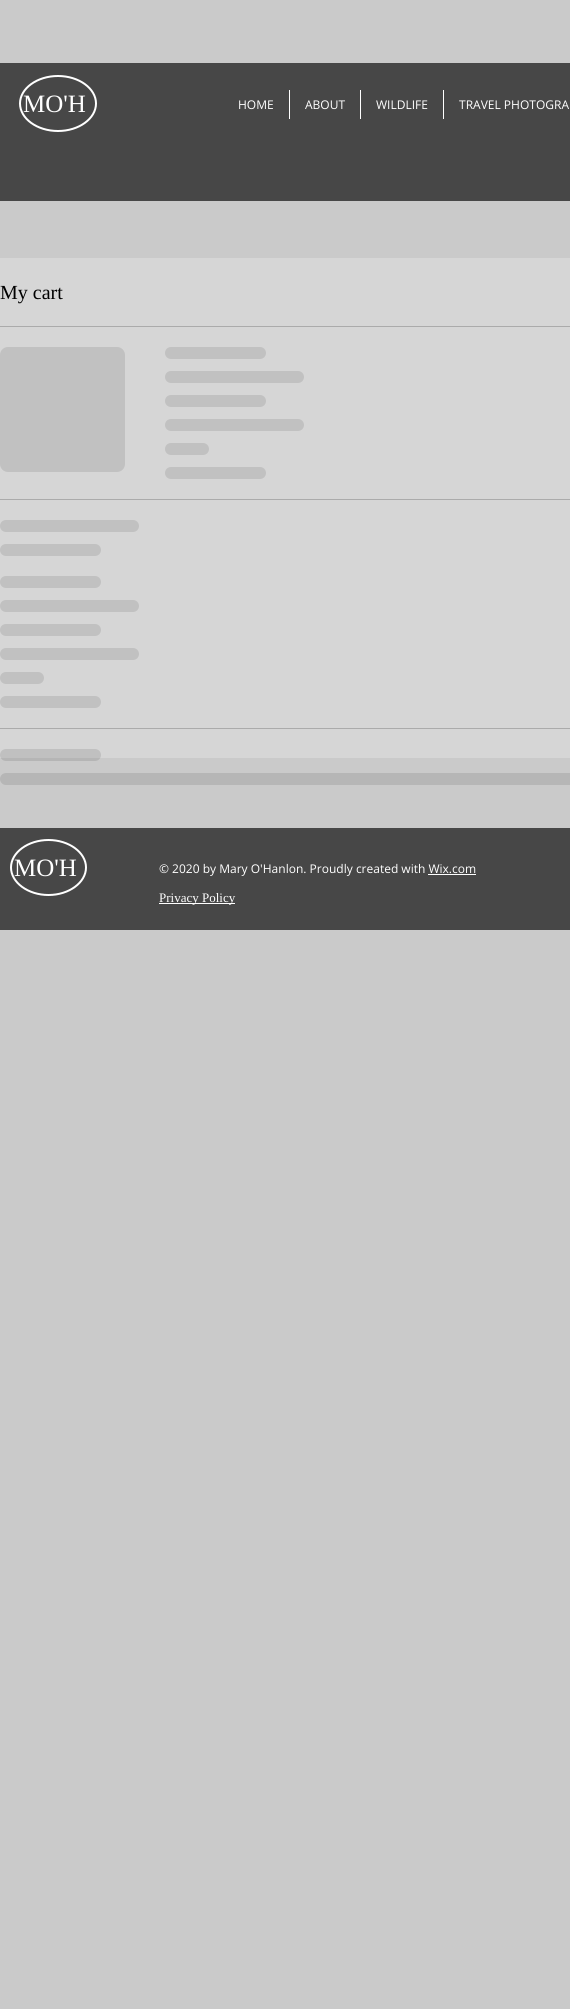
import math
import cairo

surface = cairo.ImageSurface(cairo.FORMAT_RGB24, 570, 2009)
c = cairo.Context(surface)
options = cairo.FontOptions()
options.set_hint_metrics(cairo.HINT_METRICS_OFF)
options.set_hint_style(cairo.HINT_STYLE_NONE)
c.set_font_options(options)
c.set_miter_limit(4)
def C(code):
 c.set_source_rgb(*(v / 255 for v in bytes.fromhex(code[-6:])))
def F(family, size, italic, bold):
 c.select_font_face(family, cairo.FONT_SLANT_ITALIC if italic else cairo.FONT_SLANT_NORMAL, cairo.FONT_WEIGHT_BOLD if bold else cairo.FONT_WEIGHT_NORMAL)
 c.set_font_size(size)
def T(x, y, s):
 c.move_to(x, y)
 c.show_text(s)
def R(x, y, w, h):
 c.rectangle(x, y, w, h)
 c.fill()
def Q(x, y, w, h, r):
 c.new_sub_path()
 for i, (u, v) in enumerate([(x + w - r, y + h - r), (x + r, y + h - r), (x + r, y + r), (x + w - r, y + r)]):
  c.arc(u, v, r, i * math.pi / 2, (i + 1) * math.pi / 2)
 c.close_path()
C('cacaca')
c.paint()
C('474747')
R(0,63,570,138)
c.new_path()
c.move_to(58,76)
c.curve_to(79,76,96,88.5,96,103.5)
c.curve_to(96,118.5,79,131,58,131)
c.curve_to(37,131,20,118.5,20,103.5)
c.curve_to(20,88.5,37,76,58,76)
c.close_path()
C('ffffff')
c.stroke()
F('Liberation Serif',25,0,0)
T(23,112,'MO\'H')
F('Open Sans',12,0,0)
T(238,109,'HOME')
R(289,90,1,29)
T(305,109,'ABOUT')
R(360,90,1,29)
T(376,109,'WILDLIFE')
R(443,90,1,29)
T(459,109,'TRAVEL PHOTOGRA')
C('d6d6d6')
R(0,258,570,500)
C('ababab')
R(0,326,570,1)
F('Liberation Serif',20,0,0)
C('000000')
T(0,299,'My cart')
gradient = cairo.LinearGradient(0,410,500,410)
gradient.add_color_stop_rgba(.25,0.757,0.757,0.757,1)
gradient.add_color_stop_rgba(.37,0.671,0.671,0.671,1)
gradient.add_color_stop_rgba(.63,0.757,0.757,0.757,1)
c.set_source(gradient)
Q(0,347,125,125,8)
c.fill()
gradient = cairo.LinearGradient(165,353,569,353)
gradient.add_color_stop_rgba(.25,0.757,0.757,0.757,1)
gradient.add_color_stop_rgba(.37,0.671,0.671,0.671,1)
gradient.add_color_stop_rgba(.63,0.757,0.757,0.757,1)
c.set_source(gradient)
Q(165,347,101,12,6)
c.fill()
gradient = cairo.LinearGradient(165,377,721,377)
gradient.add_color_stop_rgba(.25,0.757,0.757,0.757,1)
gradient.add_color_stop_rgba(.37,0.671,0.671,0.671,1)
gradient.add_color_stop_rgba(.63,0.757,0.757,0.757,1)
c.set_source(gradient)
Q(165,371,139,12,6)
c.fill()
gradient = cairo.LinearGradient(165,401,569,401)
gradient.add_color_stop_rgba(.25,0.757,0.757,0.757,1)
gradient.add_color_stop_rgba(.37,0.671,0.671,0.671,1)
gradient.add_color_stop_rgba(.63,0.757,0.757,0.757,1)
c.set_source(gradient)
Q(165,395,101,12,6)
c.fill()
gradient = cairo.LinearGradient(165,425,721,425)
gradient.add_color_stop_rgba(.25,0.757,0.757,0.757,1)
gradient.add_color_stop_rgba(.37,0.671,0.671,0.671,1)
gradient.add_color_stop_rgba(.63,0.757,0.757,0.757,1)
c.set_source(gradient)
Q(165,419,139,12,6)
c.fill()
gradient = cairo.LinearGradient(165,449,341,449)
gradient.add_color_stop_rgba(.25,0.757,0.757,0.757,1)
gradient.add_color_stop_rgba(.37,0.671,0.671,0.671,1)
gradient.add_color_stop_rgba(.63,0.757,0.757,0.757,1)
c.set_source(gradient)
Q(165,443,44,12,6)
c.fill()
gradient = cairo.LinearGradient(165,473,569,473)
gradient.add_color_stop_rgba(.25,0.757,0.757,0.757,1)
gradient.add_color_stop_rgba(.37,0.671,0.671,0.671,1)
gradient.add_color_stop_rgba(.63,0.757,0.757,0.757,1)
c.set_source(gradient)
Q(165,467,101,12,6)
c.fill()
C('ababab')
R(0,499,570,1)
gradient = cairo.LinearGradient(0,526,556,526)
gradient.add_color_stop_rgba(.25,0.757,0.757,0.757,1)
gradient.add_color_stop_rgba(.37,0.671,0.671,0.671,1)
gradient.add_color_stop_rgba(.63,0.757,0.757,0.757,1)
c.set_source(gradient)
Q(0,520,139,12,6)
c.fill()
gradient = cairo.LinearGradient(0,550,404,550)
gradient.add_color_stop_rgba(.25,0.757,0.757,0.757,1)
gradient.add_color_stop_rgba(.37,0.671,0.671,0.671,1)
gradient.add_color_stop_rgba(.63,0.757,0.757,0.757,1)
c.set_source(gradient)
Q(0,544,101,12,6)
c.fill()
gradient = cairo.LinearGradient(0,582,404,582)
gradient.add_color_stop_rgba(.25,0.757,0.757,0.757,1)
gradient.add_color_stop_rgba(.37,0.671,0.671,0.671,1)
gradient.add_color_stop_rgba(.63,0.757,0.757,0.757,1)
c.set_source(gradient)
Q(0,576,101,12,6)
c.fill()
gradient = cairo.LinearGradient(0,606,556,606)
gradient.add_color_stop_rgba(.25,0.757,0.757,0.757,1)
gradient.add_color_stop_rgba(.37,0.671,0.671,0.671,1)
gradient.add_color_stop_rgba(.63,0.757,0.757,0.757,1)
c.set_source(gradient)
Q(0,600,139,12,6)
c.fill()
gradient = cairo.LinearGradient(0,630,404,630)
gradient.add_color_stop_rgba(.25,0.757,0.757,0.757,1)
gradient.add_color_stop_rgba(.37,0.671,0.671,0.671,1)
gradient.add_color_stop_rgba(.63,0.757,0.757,0.757,1)
c.set_source(gradient)
Q(0,624,101,12,6)
c.fill()
gradient = cairo.LinearGradient(0,654,556,654)
gradient.add_color_stop_rgba(.25,0.757,0.757,0.757,1)
gradient.add_color_stop_rgba(.37,0.671,0.671,0.671,1)
gradient.add_color_stop_rgba(.63,0.757,0.757,0.757,1)
c.set_source(gradient)
Q(0,648,139,12,6)
c.fill()
gradient = cairo.LinearGradient(0,678,176,678)
gradient.add_color_stop_rgba(.25,0.757,0.757,0.757,1)
gradient.add_color_stop_rgba(.37,0.671,0.671,0.671,1)
gradient.add_color_stop_rgba(.63,0.757,0.757,0.757,1)
c.set_source(gradient)
Q(0,672,44,12,6)
c.fill()
gradient = cairo.LinearGradient(0,702,404,702)
gradient.add_color_stop_rgba(.25,0.757,0.757,0.757,1)
gradient.add_color_stop_rgba(.37,0.671,0.671,0.671,1)
gradient.add_color_stop_rgba(.63,0.757,0.757,0.757,1)
c.set_source(gradient)
Q(0,696,101,12,6)
c.fill()
C('ababab')
R(0,728,570,1)
gradient = cairo.LinearGradient(0,755,404,755)
gradient.add_color_stop_rgba(.25,0,0,0,.1)
gradient.add_color_stop_rgba(.37,0,0,0,.2)
gradient.add_color_stop_rgba(.63,0,0,0,.1)
c.set_source(gradient)
Q(0,749,101,12,6)
c.fill()
gradient = cairo.LinearGradient(0,779,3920,779)
gradient.add_color_stop_rgba(.25,0.714,0.714,0.714,1)
gradient.add_color_stop_rgba(.37,0.635,0.635,0.635,1)
gradient.add_color_stop_rgba(.63,0.714,0.714,0.714,1)
c.set_source(gradient)
Q(0,773,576,12,6)
c.fill()
C('474747')
R(0,828,570,102)
c.new_path()
c.move_to(48.5,840)
c.curve_to(69,840,86,852.5,86,867.5)
c.curve_to(86,882.5,69,895,48.5,895)
c.curve_to(28,895,11,882.5,11,867.5)
c.curve_to(11,852.5,28,840,48.5,840)
c.close_path()
C('ffffff')
c.stroke()
F('Liberation Serif',25,0,0)
T(14,876,'MO\'H')
F('Open Sans',12,0,0)
T(159,873,'© 2020 by Mary O\'Hanlon. Proudly created with Wix.com')
R(428,874,48,1)
R(159,903,76,1)
F('Liberation Serif',13,0,0)
T(159,902,'Privacy Policy')
surface.write_to_png('o.png')
